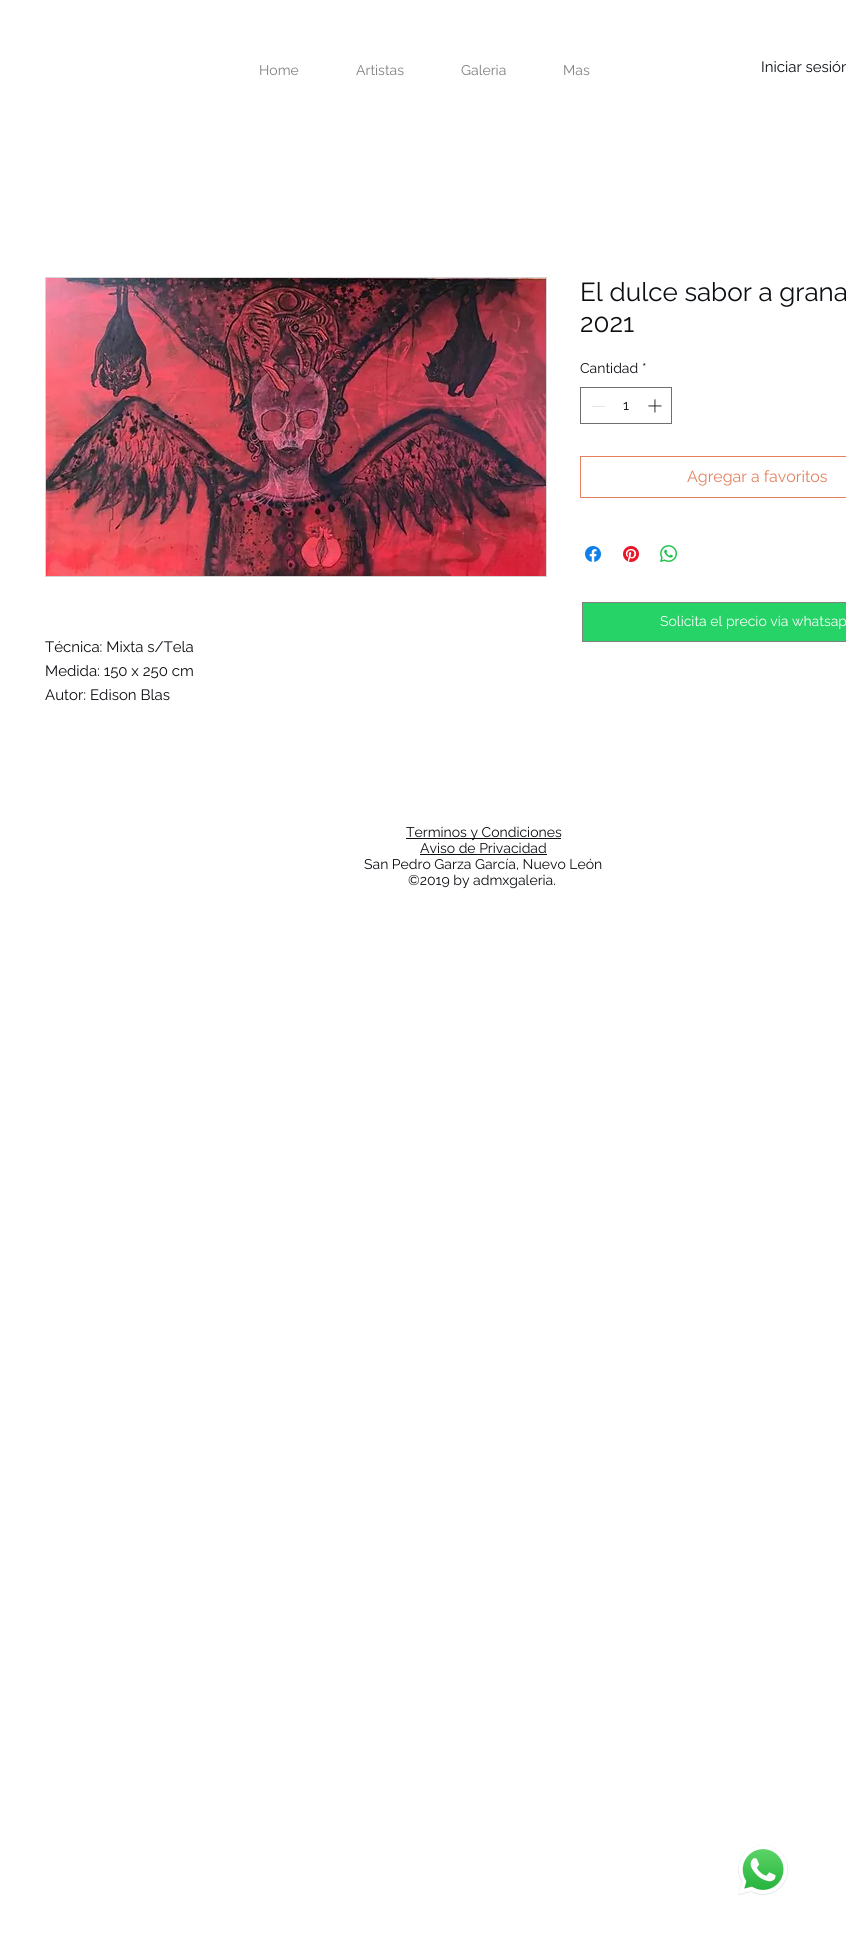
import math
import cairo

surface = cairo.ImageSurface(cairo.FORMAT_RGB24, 846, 1954)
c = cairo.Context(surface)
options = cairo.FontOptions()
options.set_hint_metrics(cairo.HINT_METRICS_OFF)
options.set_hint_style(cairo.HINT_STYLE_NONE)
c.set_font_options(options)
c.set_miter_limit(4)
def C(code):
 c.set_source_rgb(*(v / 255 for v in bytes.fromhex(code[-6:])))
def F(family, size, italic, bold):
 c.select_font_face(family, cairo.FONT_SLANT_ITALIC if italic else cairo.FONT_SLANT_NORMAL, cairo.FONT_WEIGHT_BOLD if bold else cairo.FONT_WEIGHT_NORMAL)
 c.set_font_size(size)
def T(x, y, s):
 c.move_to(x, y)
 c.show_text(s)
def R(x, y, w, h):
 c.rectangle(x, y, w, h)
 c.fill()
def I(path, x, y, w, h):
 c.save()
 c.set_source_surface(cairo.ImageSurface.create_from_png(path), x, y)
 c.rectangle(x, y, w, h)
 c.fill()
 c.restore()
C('ffffff')
c.paint()
F('Raleway',14,0,0)
C('808080')
T(259,75,'Home')
T(356,75,'Artistas')
T(461,75,'Galeria')
T(563,75,'Mas')
F('Raleway',15,0,0)
C('0b0e12')
T(761,72,'Iniciar sesión')
F('Raleway',26,0,0)
T(580,301,'El dulce sabor a grana')
T(580,332,'2021')
F('Raleway',14,0,0)
T(580,373,'Cantidad')
T(642,373,'*')
c.rectangle(580.5,387.5,91,36)
C('6d6e71')
c.set_line_width(1)
c.stroke()
C('e3e3e3')
R(592,406,13,1)
C('0b0e12')
T(623,410,'1')
I('1.png',648,399,14,14)
c.rectangle(580.5,456.5,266,41)
C('e3815f')
c.stroke()
F('Raleway',16,0,0)
T(687,482,'Agregar a favoritos')
I('2.png',585,546,16,16)
I('3.png',623,546,16,16)
I('4.png',660,545,17,17)
c.rectangle(45.5,277.5,501,299)
C('d5d5d5')
c.stroke()
I('5.png',46,278,500,298)
F('Raleway',15,0,0)
C('0b0e12')
T(45,652,'Técnica: Mixta s/Tela')
T(45,676,'Medida: 150 x 250 cm')
T(45,700,'Autor: Edison Blas')
C('25d366')
c.rectangle(582.5,602.5,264,39)
c.fill_preserve()
C('808080')
c.stroke()
F('Raleway',14,0,0)
C('ffffff')
T(660,626,'Solicita el precio via whatsap')
I('6.png',738,1845,50,50)
C('0b0e12')
R(406,838,155,1)
T(406,837,'Terminos y Condiciones')
T(420,853,'Aviso de Privacidad')
R(420,854,127,1)
T(364,869,'San Pedro Garza García, Nuevo León')
T(408,885,'©2019 by admxgaleria.')
I('7.png',738,1854,50,41)
surface.write_to_png('o.png')
